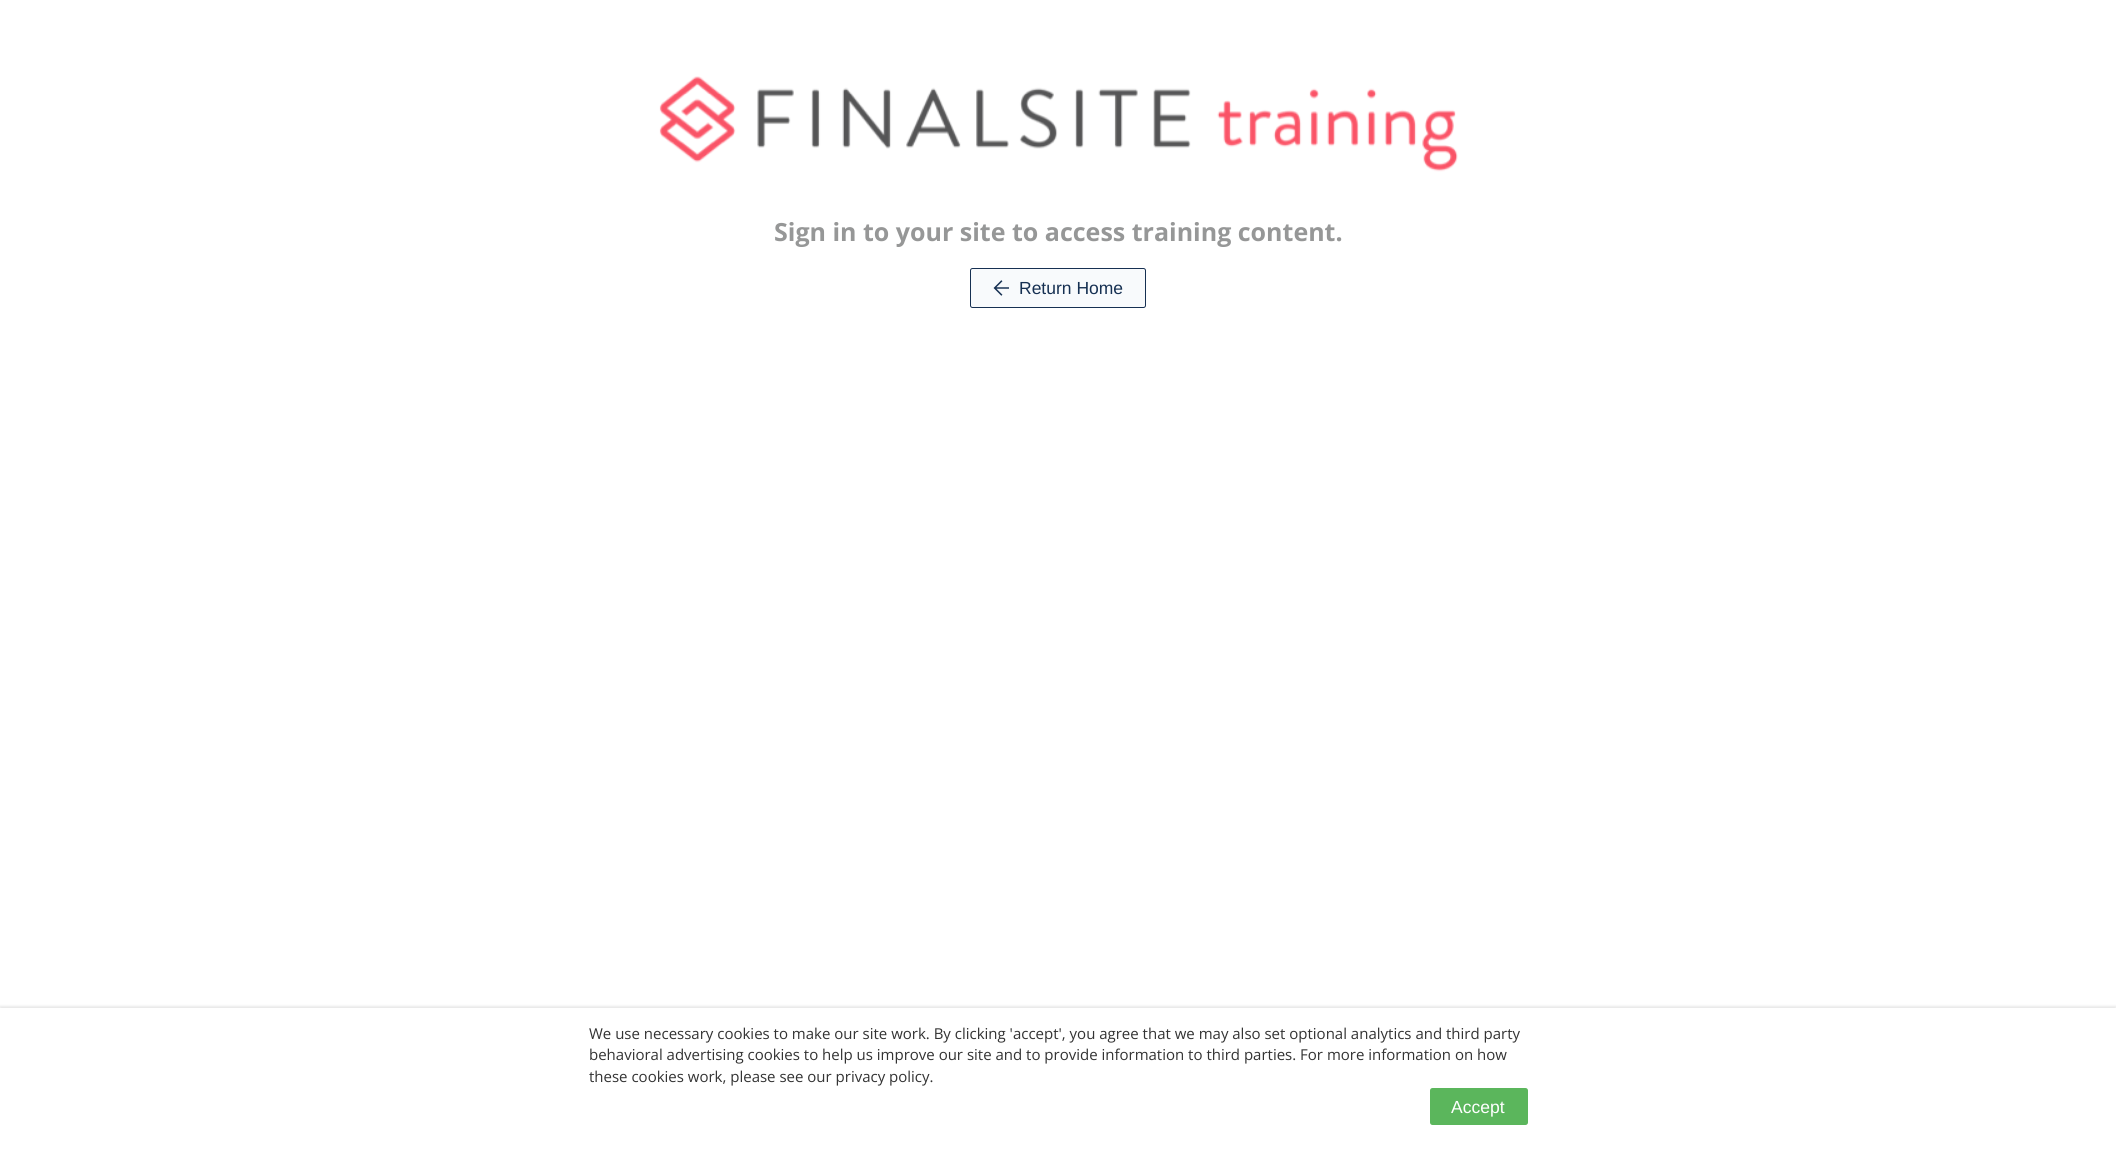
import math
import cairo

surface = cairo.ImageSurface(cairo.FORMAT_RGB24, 2116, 1159)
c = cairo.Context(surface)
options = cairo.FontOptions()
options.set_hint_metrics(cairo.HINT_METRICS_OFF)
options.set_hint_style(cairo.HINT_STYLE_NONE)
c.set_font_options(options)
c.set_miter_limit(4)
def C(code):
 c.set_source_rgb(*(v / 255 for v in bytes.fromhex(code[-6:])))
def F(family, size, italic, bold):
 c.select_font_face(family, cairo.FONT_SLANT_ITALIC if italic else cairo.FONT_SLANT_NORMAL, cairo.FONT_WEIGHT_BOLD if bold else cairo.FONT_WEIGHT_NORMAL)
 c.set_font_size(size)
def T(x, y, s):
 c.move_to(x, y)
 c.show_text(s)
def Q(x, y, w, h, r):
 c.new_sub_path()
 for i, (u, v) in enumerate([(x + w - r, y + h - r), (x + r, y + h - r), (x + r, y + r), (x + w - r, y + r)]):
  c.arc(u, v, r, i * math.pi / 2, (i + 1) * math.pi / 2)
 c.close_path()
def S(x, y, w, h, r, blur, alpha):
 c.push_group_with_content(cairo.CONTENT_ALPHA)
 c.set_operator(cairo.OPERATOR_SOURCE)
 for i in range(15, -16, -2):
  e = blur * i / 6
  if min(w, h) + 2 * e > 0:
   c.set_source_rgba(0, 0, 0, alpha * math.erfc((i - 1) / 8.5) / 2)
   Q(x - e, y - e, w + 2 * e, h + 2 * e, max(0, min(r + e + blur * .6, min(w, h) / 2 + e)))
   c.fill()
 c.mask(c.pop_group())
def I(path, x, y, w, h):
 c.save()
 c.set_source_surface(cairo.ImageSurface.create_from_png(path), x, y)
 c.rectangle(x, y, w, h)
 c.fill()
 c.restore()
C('ffffff')
c.paint()
I('1.png',659,76,799,96)
F('Open Sans',25,0,1)
C('969797')
T(774,241,'Sign in to your site to access training content.')
C('f8fafc')
Q(970.5,268.5,175,39,2)
c.fill_preserve()
C('163052')
c.set_line_width(1)
c.stroke()
I('2.png',993,280,16,16)
F('Liberation Sans',17.5,0,0)
T(1019,294,'Return Home')
c.save()
c.rectangle(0,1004,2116,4)
c.clip()
C('e9e9e9')
S(0,1006,2116,153,0,1,1)
c.restore()
F('Open Sans',15,0,0)
C('333333')
T(589,1039,'We use necessary cookies to make our site work. By clicking \'accept\', you agree that we may also set optional analytics and third party')
T(589,1060,'behavioral advertising cookies to help us improve our site and to provide information to third parties. For more information on how')
T(589,1082,'these cookies work, please see our privacy policy.')
C('5bb65c')
Q(1430,1088,98,37,2.5)
c.fill()
F('Liberation Sans',17.5,0,0)
C('ffffff')
T(1451,1113,'Accept')
surface.write_to_png('o.png')
